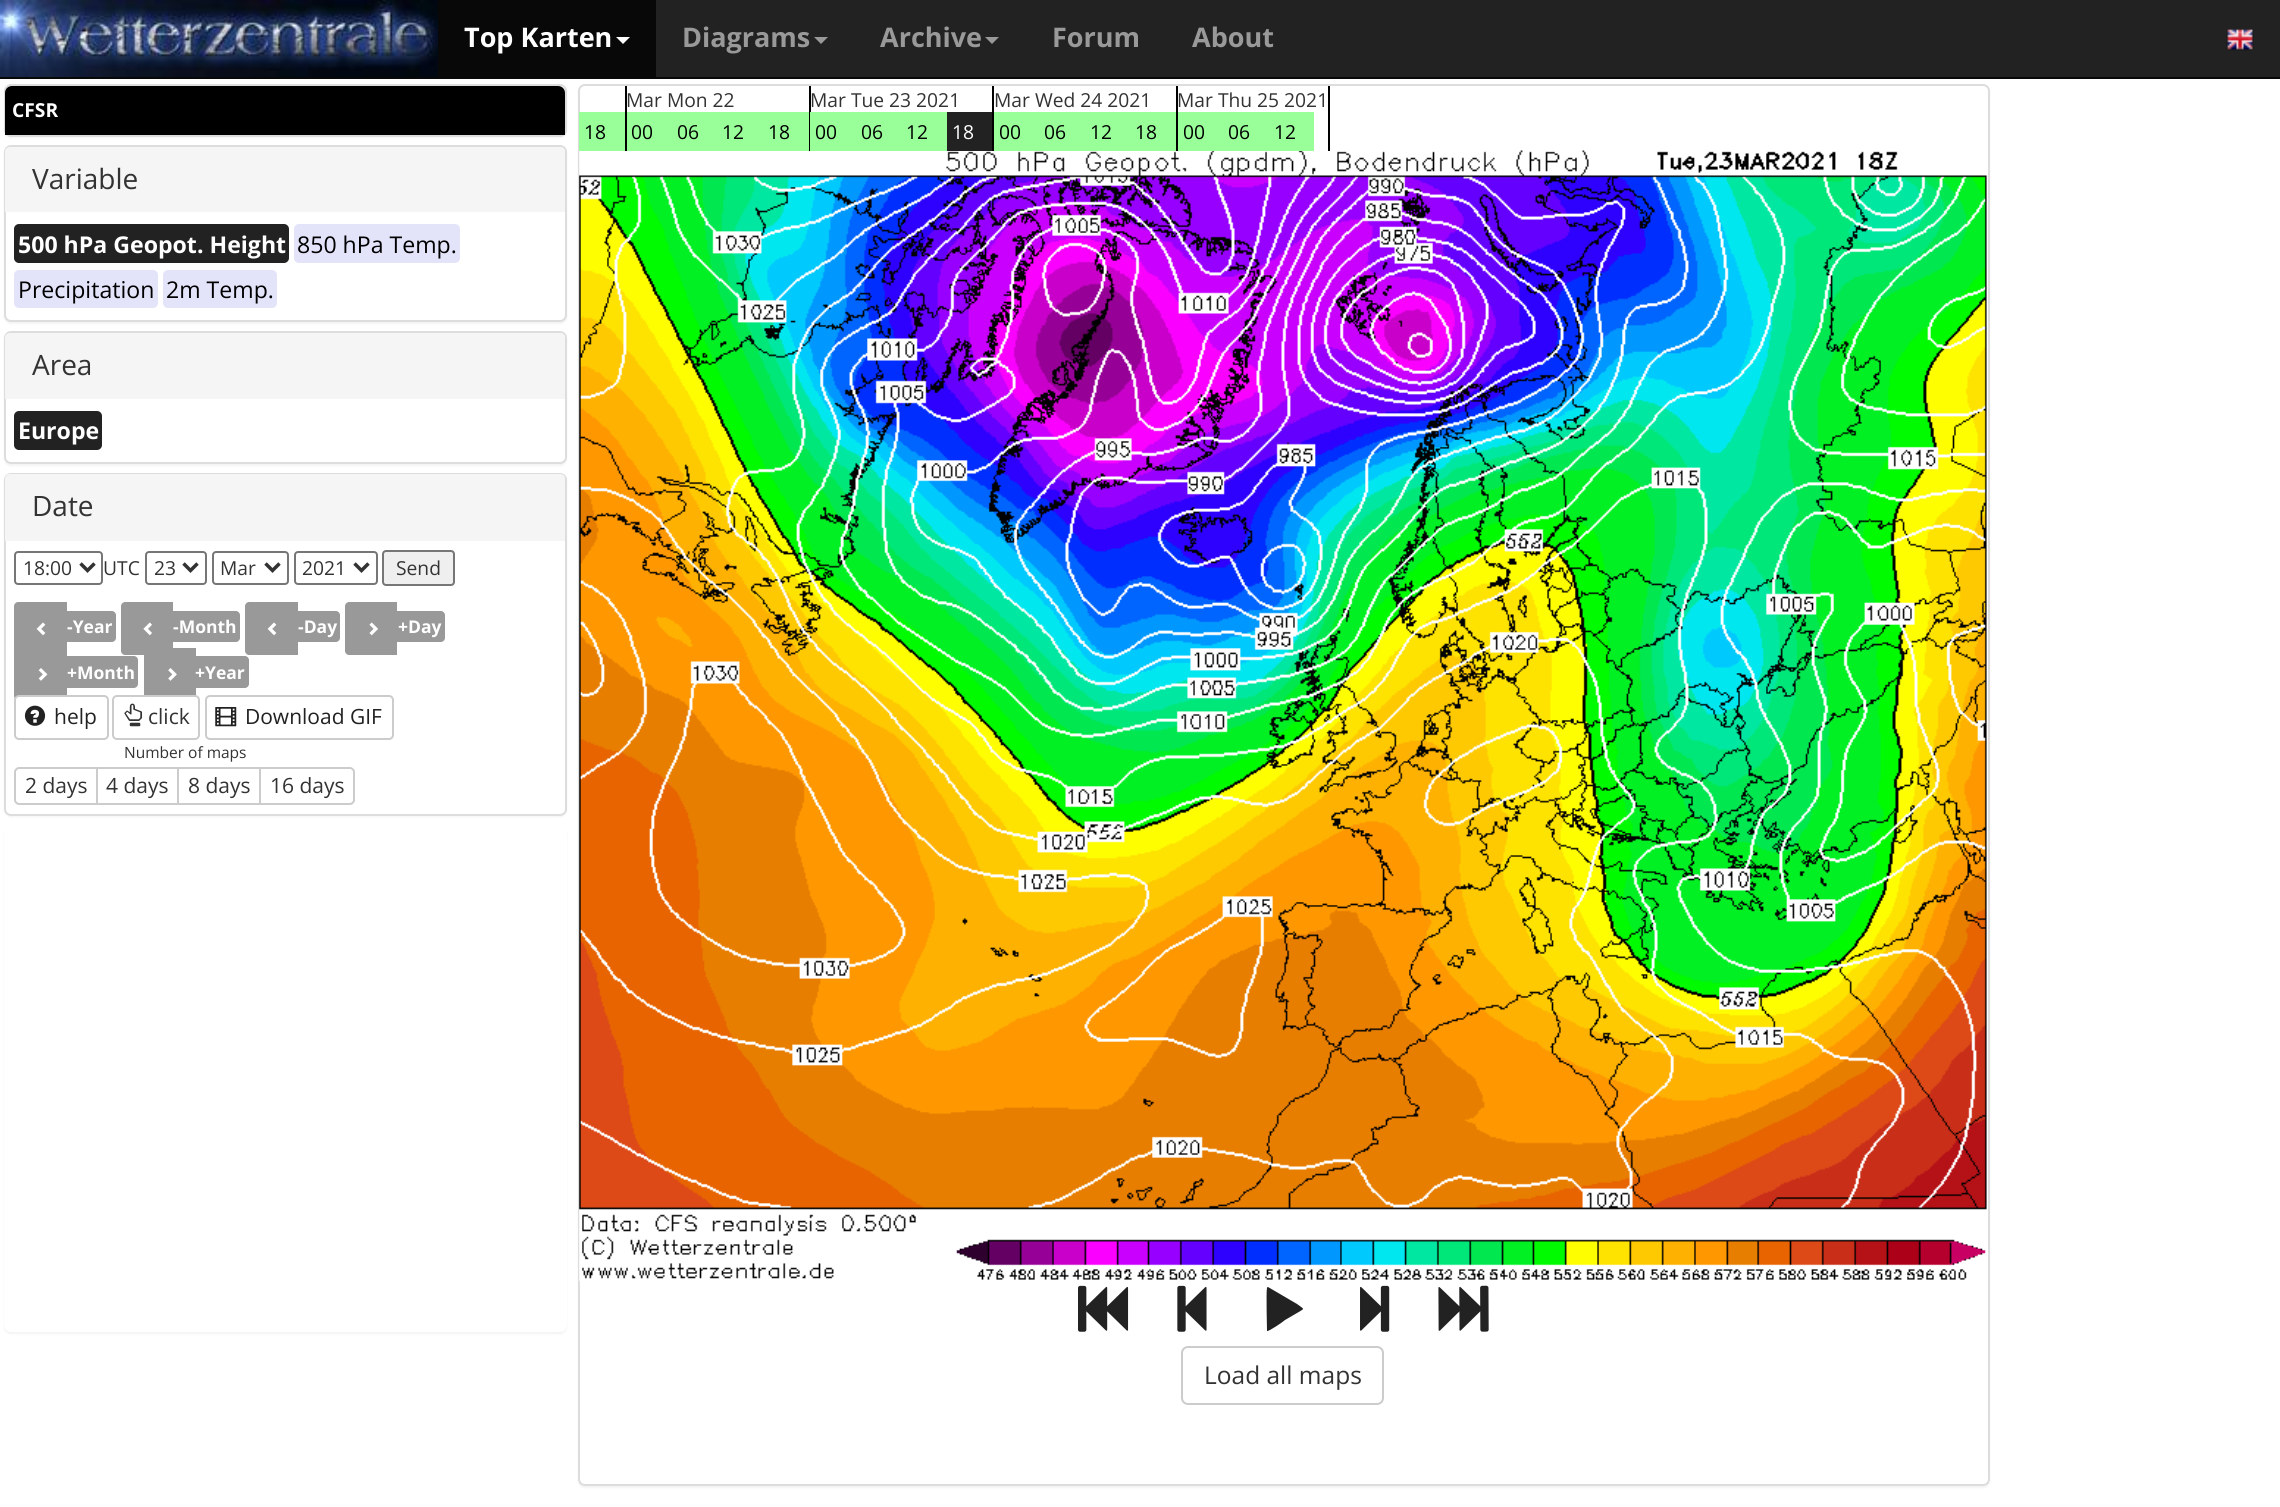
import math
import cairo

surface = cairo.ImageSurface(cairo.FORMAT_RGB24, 2280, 1507)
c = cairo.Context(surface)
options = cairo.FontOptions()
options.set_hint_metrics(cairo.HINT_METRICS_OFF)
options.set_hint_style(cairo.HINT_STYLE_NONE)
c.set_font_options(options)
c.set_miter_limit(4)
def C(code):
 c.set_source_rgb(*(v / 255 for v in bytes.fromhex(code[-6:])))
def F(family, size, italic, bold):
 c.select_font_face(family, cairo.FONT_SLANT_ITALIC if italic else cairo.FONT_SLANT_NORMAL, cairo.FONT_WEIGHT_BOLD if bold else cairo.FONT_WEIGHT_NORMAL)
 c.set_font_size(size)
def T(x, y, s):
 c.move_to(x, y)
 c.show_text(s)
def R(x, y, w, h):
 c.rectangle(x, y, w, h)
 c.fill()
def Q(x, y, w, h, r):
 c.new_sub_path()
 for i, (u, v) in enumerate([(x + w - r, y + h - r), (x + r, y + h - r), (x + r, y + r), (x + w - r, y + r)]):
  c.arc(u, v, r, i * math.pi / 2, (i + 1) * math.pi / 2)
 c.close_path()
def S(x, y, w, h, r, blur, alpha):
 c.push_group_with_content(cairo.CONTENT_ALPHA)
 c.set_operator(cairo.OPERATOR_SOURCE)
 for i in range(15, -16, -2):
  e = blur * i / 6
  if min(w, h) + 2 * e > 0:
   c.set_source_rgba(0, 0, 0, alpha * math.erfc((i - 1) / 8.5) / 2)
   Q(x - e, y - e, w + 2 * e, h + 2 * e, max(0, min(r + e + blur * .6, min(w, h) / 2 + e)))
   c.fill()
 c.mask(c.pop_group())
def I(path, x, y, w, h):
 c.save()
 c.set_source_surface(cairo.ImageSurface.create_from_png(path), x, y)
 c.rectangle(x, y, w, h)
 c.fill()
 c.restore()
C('ffffff')
c.paint()
C('222222')
R(656,0,1624,77)
C('080808')
R(0,77,2280,2)
I('1.png',0,0,438,77)
R(438,0,218,77)
F('Open Sans',27,0,1)
C('ffffff')
T(464,47,'Top Karten')
c.new_path()
c.move_to(616,37)
c.line_to(630,37)
c.line_to(623,44)
c.close_path()
c.fill()
C('999999')
T(682,47,'Diagrams')
c.new_path()
c.move_to(814,37)
c.line_to(828,37)
c.line_to(821,44)
c.close_path()
c.fill()
T(880,47,'Archive')
c.new_path()
c.move_to(985,37)
c.line_to(999,37)
c.line_to(992,44)
c.close_path()
c.fill()
T(1052,47,'Forum')
T(1192,47,'About')
I('2.png',2226,29,28,22)
C('000000')
S(4,86,563,52,7,1,.05)
C('ffffff')
Q(5,85,561,51,6)
c.fill_preserve()
C('dddddd')
c.stroke()
C('000000')
c.new_path()
c.move_to(12,86)
c.line_to(558,86)
c.curve_to(562,86,565,89,565,93)
c.line_to(565,135)
c.line_to(5,135)
c.line_to(5,93)
c.curve_to(5,89,8,86,12,86)
c.close_path()
c.fill()
F('Open Sans',19.25,0,1)
C('ffffff')
T(12,117,'CFSR')
C('000000')
S(4,147,563,177,7,1,.05)
C('ffffff')
Q(5,146,561,175,6)
c.fill_preserve()
C('dddddd')
c.stroke()
C('f5f5f5')
c.new_path()
c.move_to(10,147)
c.line_to(560,147)
c.curve_to(563,147,565,149,565,152)
c.line_to(565,212)
c.line_to(5,212)
c.line_to(5,152)
c.curve_to(5,149,7,147,10,147)
c.close_path()
c.fill()
F('Open Sans',28,0,0)
C('333333')
T(32,189,'Variable')
C('222222')
Q(14,224,275,39,5)
c.fill()
F('Open Sans',23.1,0,1)
C('ffffff')
T(18,253,'500 hPa Geopot. Height')
C('e3e4fa')
Q(294,224,166,39,5)
c.fill()
F('Open Sans',23.1,0,0)
C('000000')
T(297,253,'850 hPa Temp.')
C('e3e4fa')
Q(14,270,144,38,5)
c.fill()
C('000000')
T(18,298,'Precipitation')
C('e3e4fa')
Q(163,270,114,38,5)
c.fill()
C('000000')
T(166,298,'2m Temp.')
C('000000')
S(4,333,563,133,7,1,.05)
C('ffffff')
Q(5,332,561,131,6)
c.fill_preserve()
C('dddddd')
c.stroke()
C('f5f5f5')
c.new_path()
c.move_to(10,333)
c.line_to(560,333)
c.curve_to(563,333,565,335,565,338)
c.line_to(565,399)
c.line_to(5,399)
c.line_to(5,338)
c.curve_to(5,335,7,333,10,333)
c.close_path()
c.fill()
F('Open Sans',28,0,0)
C('333333')
T(32,375,'Area')
C('222222')
Q(14,411,88,39,5)
c.fill()
F('Open Sans',23.1,0,1)
C('ffffff')
T(18,439,'Europe')
C('000000')
S(4,474,563,343,7,1,.05)
C('ffffff')
Q(5,474,561,341,6)
c.fill_preserve()
C('dddddd')
c.stroke()
C('f5f5f5')
c.new_path()
c.move_to(10,474)
c.line_to(560,474)
c.curve_to(563,474,565,476,565,479)
c.line_to(565,541)
c.line_to(5,541)
c.line_to(5,479)
c.curve_to(5,476,7,474,10,474)
c.close_path()
c.fill()
F('Open Sans',28,0,0)
C('333333')
T(32,516,'Date')
Q(15,552,87,32,3)
C('767676')
c.stroke()
c.new_path()
c.move_to(80.5,563.5)
c.line_to(87.5,570.5)
c.line_to(94.5,563.5)
C('333333')
c.set_line_width(3.5)
c.stroke()
F('Open Sans',19.25,0,0)
T(23,575,'18:00')
T(103,575,'UTC')
Q(146,552,60,32,3)
C('767676')
c.set_line_width(2)
c.stroke()
c.new_path()
c.move_to(183.5,563.5)
c.line_to(190.5,570.5)
c.line_to(197.5,563.5)
C('333333')
c.set_line_width(3.5)
c.stroke()
T(154,575,'23')
Q(213,552,75,32,3)
C('767676')
c.set_line_width(2)
c.stroke()
c.new_path()
c.move_to(265.5,563.5)
c.line_to(272.5,570.5)
c.line_to(279.5,563.5)
C('333333')
c.set_line_width(3.5)
c.stroke()
T(220,575,'Mar')
Q(295,552,82,32,3)
C('767676')
c.set_line_width(2)
c.stroke()
c.new_path()
c.move_to(354.5,563.5)
c.line_to(361.5,570.5)
c.line_to(368.5,563.5)
C('333333')
c.set_line_width(3.5)
c.stroke()
T(302,575,'2021')
C('efefef')
Q(383,551,71,34,3)
c.fill_preserve()
C('767676')
c.set_line_width(2)
c.stroke()
C('333333')
T(396,575,'Send')
C('999999')
c.new_path()
c.move_to(18,602)
c.line_to(67,602)
c.line_to(67,655)
c.line_to(18,655)
c.curve_to(16,655,14,653,14,651)
c.line_to(14,606)
c.curve_to(14,604,16,602,18,602)
c.close_path()
c.fill()
c.new_path()
c.move_to(67,611)
c.line_to(112,611)
c.curve_to(114,611,116,613,116,615)
c.line_to(116,638)
c.curve_to(116,640,114,642,112,642)
c.line_to(67,642)
c.close_path()
c.fill()
I('3.png',36,622,10,14)
F('Open Sans',17.5,0,1)
C('ffffff')
T(67,633,'-Year')
C('999999')
c.new_path()
c.move_to(125,602)
c.line_to(173,602)
c.line_to(173,655)
c.line_to(125,655)
c.curve_to(123,655,121,653,121,651)
c.line_to(121,606)
c.curve_to(121,604,123,602,125,602)
c.close_path()
c.fill()
c.new_path()
c.move_to(173,611)
c.line_to(236,611)
c.curve_to(238,611,240,613,240,615)
c.line_to(240,638)
c.curve_to(240,640,238,642,236,642)
c.line_to(173,642)
c.close_path()
c.fill()
I('4.png',143,622,9,14)
C('ffffff')
T(173,633,'-Month')
C('999999')
c.new_path()
c.move_to(249,602)
c.line_to(298,602)
c.line_to(298,655)
c.line_to(249,655)
c.curve_to(247,655,245,653,245,651)
c.line_to(245,606)
c.curve_to(245,604,247,602,249,602)
c.close_path()
c.fill()
c.new_path()
c.move_to(298,611)
c.line_to(336,611)
c.curve_to(338,611,340,613,340,615)
c.line_to(340,638)
c.curve_to(340,640,338,642,336,642)
c.line_to(298,642)
c.close_path()
c.fill()
I('3.png',267,622,10,14)
C('ffffff')
T(298,633,'-Day')
C('999999')
c.new_path()
c.move_to(349,602)
c.line_to(397,602)
c.line_to(397,655)
c.line_to(349,655)
c.curve_to(347,655,345,653,345,651)
c.line_to(345,606)
c.curve_to(345,604,347,602,349,602)
c.close_path()
c.fill()
c.new_path()
c.move_to(397,611)
c.line_to(441,611)
c.curve_to(443,611,445,613,445,615)
c.line_to(445,638)
c.curve_to(445,640,443,642,441,642)
c.line_to(397,642)
c.close_path()
c.fill()
I('5.png',369,622,9,14)
C('ffffff')
T(398,633,'+Day')
C('999999')
c.new_path()
c.move_to(18,648)
c.line_to(67,648)
c.line_to(67,700)
c.line_to(18,700)
c.curve_to(16,700,14,698,14,696)
c.line_to(14,652)
c.curve_to(14,650,16,648,18,648)
c.close_path()
c.fill()
c.new_path()
c.move_to(67,656)
c.line_to(134,656)
c.curve_to(136,656,138,658,138,660)
c.line_to(138,684)
c.curve_to(138,686,136,688,134,688)
c.line_to(67,688)
c.close_path()
c.fill()
I('6.png',38,668,10,13)
C('ffffff')
T(67,679,'+Month')
C('999999')
c.new_path()
c.move_to(148,648)
c.line_to(196,648)
c.line_to(196,700)
c.line_to(148,700)
c.curve_to(146,700,144,698,144,696)
c.line_to(144,652)
c.curve_to(144,650,146,648,148,648)
c.close_path()
c.fill()
c.new_path()
c.move_to(196,656)
c.line_to(245,656)
c.curve_to(247,656,249,658,249,660)
c.line_to(249,684)
c.curve_to(249,686,247,688,245,688)
c.line_to(196,688)
c.close_path()
c.fill()
I('7.png',168,668,9,13)
C('ffffff')
T(195,679,'+Year')
Q(15,696,93,43,4)
c.fill_preserve()
C('cccccc')
c.stroke()
I('8.png',24,705,22,21)
F('Open Sans',21,0,0)
C('222222')
T(54,724,'help')
C('ffffff')
Q(113,696,86,43,4)
c.fill_preserve()
C('cccccc')
c.stroke()
I('9.png',124,703,19,24)
C('333333')
T(148,724,'click')
Q(206,696,187,43,4)
C('cccccc')
c.stroke()
I('10.png',215,707,22,20)
C('222222')
T(245,724,'Download GIF')
F('Open Sans',15.5,0,0)
C('333333')
T(124,758,'Number of maps')
c.new_path()
c.move_to(19,768)
c.line_to(97,768)
c.line_to(97,804)
c.line_to(19,804)
c.curve_to(17,804,15,802,15,800)
c.line_to(15,772)
c.curve_to(15,770,17,768,19,768)
c.close_path()
C('cccccc')
c.stroke()
F('Open Sans',21,0,0)
C('333333')
T(25,793,'2 days')
c.rectangle(97,768,81,36)
C('cccccc')
c.stroke()
C('333333')
T(106,793,'4 days')
c.rectangle(178,768,82,36)
C('cccccc')
c.stroke()
C('333333')
T(188,793,'8 days')
C('ffffff')
c.new_path()
c.move_to(260,768)
c.line_to(350,768)
c.curve_to(352,768,354,770,354,772)
c.line_to(354,800)
c.curve_to(354,802,352,804,350,804)
c.line_to(260,804)
c.close_path()
c.fill_preserve()
C('cccccc')
c.stroke()
C('333333')
T(270,793,'16 days')
C('000000')
S(4,826,563,508,7,1,.05)
C('ffffff')
Q(4,824,563,508,7)
c.fill()
C('000000')
S(578,86,1412,1402,7,1,.05)
C('ffffff')
Q(579,85,1410,1400,6)
c.fill_preserve()
C('dddddd')
c.stroke()
I('11.png',579,150,1408,1131)
C('000000')
R(625,86,2,65)
C('99ff99')
R(579,112,46,39)
F('Open Sans',19.25,0,0)
C('000000')
T(584,139,'18')
R(809,86,2,65)
C('333333')
T(626,107,'Mar Mon 22')
C('99ff99')
R(627,112,182,39)
C('000000')
T(631,139,'00')
T(677,139,'06')
T(722,139,'12')
T(768,139,'18')
R(992,86,2,65)
C('333333')
T(810,107,'Mar Tue 23 2021')
C('99ff99')
R(810,112,137,39)
C('000000')
T(815,139,'00')
T(861,139,'06')
T(906,139,'12')
C('222222')
R(947,112,45,39)
C('ffffff')
T(952,139,'18')
C('000000')
R(1176,86,2,65)
C('333333')
T(994,107,'Mar Wed 24 2021')
C('99ff99')
R(994,112,182,39)
C('000000')
T(999,139,'00')
T(1044,139,'06')
T(1090,139,'12')
T(1135,139,'18')
R(1328,86,2,65)
C('333333')
T(1177,107,'Mar Thu 25 2021')
C('99ff99')
R(1178,112,136,39)
C('000000')
T(1183,139,'00')
T(1228,139,'06')
T(1274,139,'12')
I('12.png',1078,1285,51,47)
I('13.png',1177,1285,30,47)
C('222222')
c.new_path()
c.move_to(1268,1287)
c.line_to(1297,1304)
c.curve_to(1305,1310,1305,1308,1297,1313)
c.line_to(1285,1320)
c.curve_to(1283,1322,1268,1332,1267,1331)
c.curve_to(1267,1330,1266,1291,1267,1288)
c.curve_to(1267,1287,1268,1287,1268,1287)
c.close_path()
c.fill()
I('14.png',1360,1285,30,47)
I('15.png',1438,1285,51,47)
Q(1182,1347,201,57,6)
C('cccccc')
c.stroke()
F('Open Sans',24.5,0,0)
C('333333')
T(1204,1384,'Load all maps')
surface.write_to_png('o.png')
